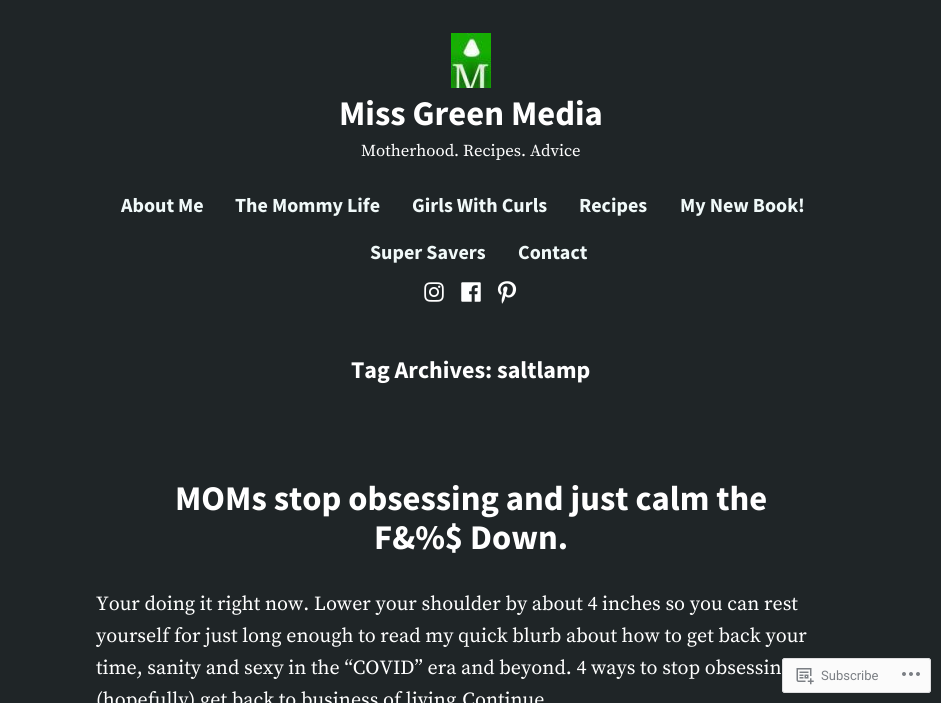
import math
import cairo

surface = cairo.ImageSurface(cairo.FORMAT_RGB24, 941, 703)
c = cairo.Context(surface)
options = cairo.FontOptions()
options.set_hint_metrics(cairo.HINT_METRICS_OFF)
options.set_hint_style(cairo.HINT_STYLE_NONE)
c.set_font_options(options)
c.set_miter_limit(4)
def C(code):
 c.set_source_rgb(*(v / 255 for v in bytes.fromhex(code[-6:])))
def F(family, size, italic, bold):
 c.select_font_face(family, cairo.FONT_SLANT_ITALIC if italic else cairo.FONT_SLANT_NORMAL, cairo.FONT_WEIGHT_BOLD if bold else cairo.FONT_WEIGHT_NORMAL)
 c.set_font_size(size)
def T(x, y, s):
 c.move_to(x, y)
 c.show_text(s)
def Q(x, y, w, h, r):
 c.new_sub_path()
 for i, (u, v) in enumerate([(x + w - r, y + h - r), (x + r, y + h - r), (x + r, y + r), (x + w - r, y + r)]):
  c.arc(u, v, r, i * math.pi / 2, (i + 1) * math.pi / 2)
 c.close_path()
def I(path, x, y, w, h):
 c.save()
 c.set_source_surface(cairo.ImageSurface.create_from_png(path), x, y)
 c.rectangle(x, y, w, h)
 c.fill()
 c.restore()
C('1f2527')
c.paint()
I('1.png',451,33,40,55)
F('Source Sans Pro',34.6,0,1)
C('ffffff')
T(339,125,'Miss Green Media')
F('Source Serif Pro',16.7,0,0)
T(361,156,'Motherhood. Recipes. Advice')
F('Source Sans Pro',20,0,1)
C('f0f9f9')
T(121,212,'About Me')
T(235,212,'The Mommy Life')
T(412,212,'Girls With Curls')
T(579,212,'Recipes')
T(680,212,'My New Book!')
T(370,259,'Super Savers')
T(518,259,'Contact')
I('2.png',424,282,20,20)
I('3.png',461,282,20,20)
I('4.png',497,281,20,23)
F('Source Sans Pro',24,0,1)
C('ffffff')
T(351,378,'Tag Archives: saltlamp')
F('Source Sans Pro',34.6,0,1)
T(175,510,'MOMs stop obsessing and just calm the')
T(374,549,'F&%$ Down.')
F('Source Serif Pro',20,0,0)
T(96,610,'Your doing it right now. Lower your shoulder by about 4 inches so you can rest')
T(96,642,'yourself for just long enough to read my quick blurb about how to get back your')
T(96,674,'time, sanity and sexy in the “COVID” era and beyond. 4 ways to stop obsessin')
T(96,706,'(hopefully) get back to business of living.Continue')
c.set_source_rgba(1,1,1,0.98)
Q(782,658,149,35,3)
c.fill()
Q(782.5,658.5,148,34,2.5)
c.set_source_rgba(0.863,0.863,0.871,0.98)
c.set_line_width(1)
c.stroke()
I('5.png',796,668,18,17)
F('Roboto',13,0,0)
C('7b7f84')
T(821,680,'Subscribe')
I('6.png',902,672,18,4)
surface.write_to_png('o.png')
